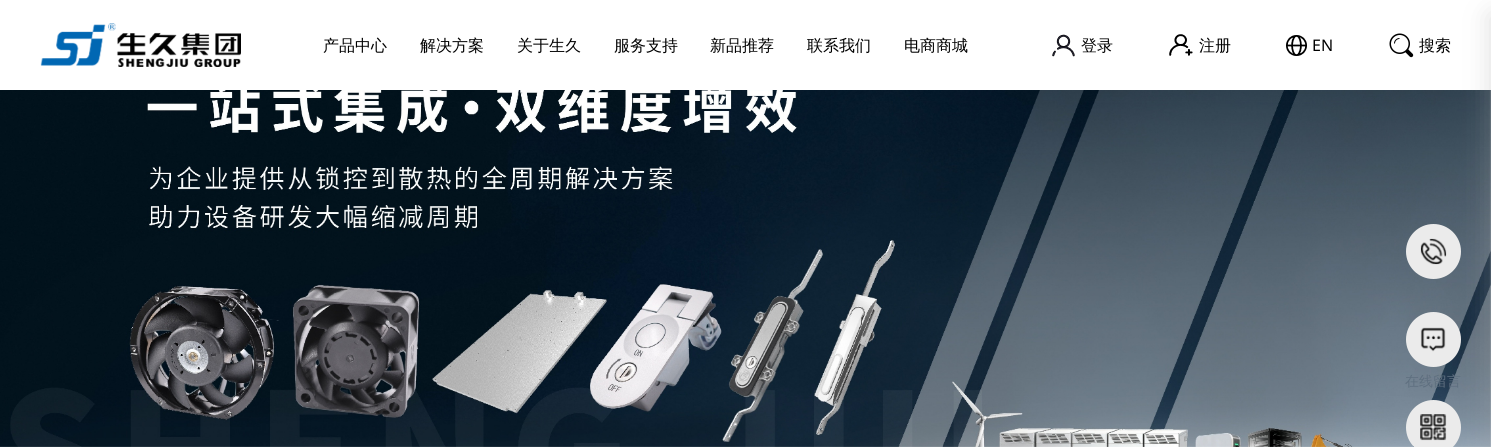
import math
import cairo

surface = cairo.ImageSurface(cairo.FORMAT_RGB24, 1491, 447)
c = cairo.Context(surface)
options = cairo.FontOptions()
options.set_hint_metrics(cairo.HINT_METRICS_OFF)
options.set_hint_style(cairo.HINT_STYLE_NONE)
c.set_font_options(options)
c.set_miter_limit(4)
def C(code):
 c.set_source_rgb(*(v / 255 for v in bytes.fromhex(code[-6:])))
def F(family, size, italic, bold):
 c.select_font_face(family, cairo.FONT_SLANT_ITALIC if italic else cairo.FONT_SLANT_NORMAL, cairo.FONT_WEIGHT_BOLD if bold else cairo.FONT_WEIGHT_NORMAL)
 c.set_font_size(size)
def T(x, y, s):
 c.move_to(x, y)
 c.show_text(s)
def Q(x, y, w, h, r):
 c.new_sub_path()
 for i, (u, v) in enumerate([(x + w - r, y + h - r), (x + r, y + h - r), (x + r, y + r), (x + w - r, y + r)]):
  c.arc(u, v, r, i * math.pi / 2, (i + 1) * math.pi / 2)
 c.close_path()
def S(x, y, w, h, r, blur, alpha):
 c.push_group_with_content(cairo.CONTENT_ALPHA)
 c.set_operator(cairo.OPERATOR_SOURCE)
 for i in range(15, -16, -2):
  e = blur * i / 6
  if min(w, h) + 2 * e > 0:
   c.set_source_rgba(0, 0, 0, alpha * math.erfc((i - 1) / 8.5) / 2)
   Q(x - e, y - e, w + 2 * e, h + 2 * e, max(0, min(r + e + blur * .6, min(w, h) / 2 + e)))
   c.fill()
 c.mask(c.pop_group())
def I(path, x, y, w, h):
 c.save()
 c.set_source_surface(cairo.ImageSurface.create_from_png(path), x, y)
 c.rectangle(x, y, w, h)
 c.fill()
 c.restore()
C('ffffff')
c.paint()
I('1.png',40,23,201,44)
F('WenQuanYi Zen Hei Medium',16,0,0)
C('000000')
T(323,51,'产品中心')
T(420,51,'解决方案')
T(517,51,'关于生久')
T(614,51,'服务支持')
T(710,51,'新品推荐')
T(807,51,'联系我们')
T(904,51,'电商商城')
I('2.png',1052,34,23,23)
T(1081,51,'登录')
I('3.png',1169,34,24,22)
T(1199,51,'注册')
I('4.png',1286,35,21,21)
F('Noto Sans',16,0,0)
T(1312,51,'EN')
I('5.png',1389,33,25,25)
F('WenQuanYi Zen Hei Medium',16,0,0)
T(1419,51,'搜索')
I('6.png',0,90,1491,357)
C('ebebeb')
c.arc(1433.5,251.5,27.5,0,2 * math.pi)
c.fill()
c.arc(1433.5,339.5,27.5,0,2 * math.pi)
c.fill()
c.arc(1433.5,427.5,27.5,0,2 * math.pi)
c.fill()
C('a7a5a5')
S(1491,15,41,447,0,13.5,.38)
I('7.png',1420,238,27,27)
I('8.png',1420,327,26,25)
F('WenQuanYi Zen Hei Medium',14,0,0)
C('5e6f7f')
T(1405,386,'在线留言')
I('9.png',1420,414,27,27)
surface.write_to_png('o.png')
